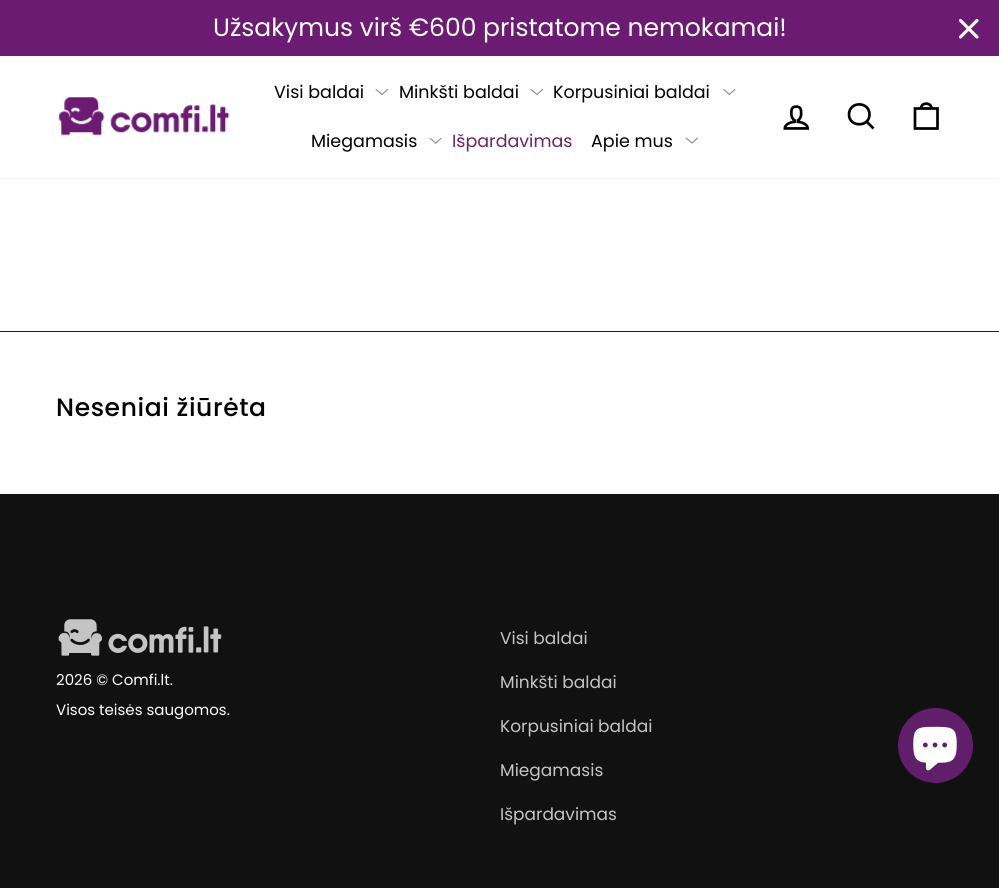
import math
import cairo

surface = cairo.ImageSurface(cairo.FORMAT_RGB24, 999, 888)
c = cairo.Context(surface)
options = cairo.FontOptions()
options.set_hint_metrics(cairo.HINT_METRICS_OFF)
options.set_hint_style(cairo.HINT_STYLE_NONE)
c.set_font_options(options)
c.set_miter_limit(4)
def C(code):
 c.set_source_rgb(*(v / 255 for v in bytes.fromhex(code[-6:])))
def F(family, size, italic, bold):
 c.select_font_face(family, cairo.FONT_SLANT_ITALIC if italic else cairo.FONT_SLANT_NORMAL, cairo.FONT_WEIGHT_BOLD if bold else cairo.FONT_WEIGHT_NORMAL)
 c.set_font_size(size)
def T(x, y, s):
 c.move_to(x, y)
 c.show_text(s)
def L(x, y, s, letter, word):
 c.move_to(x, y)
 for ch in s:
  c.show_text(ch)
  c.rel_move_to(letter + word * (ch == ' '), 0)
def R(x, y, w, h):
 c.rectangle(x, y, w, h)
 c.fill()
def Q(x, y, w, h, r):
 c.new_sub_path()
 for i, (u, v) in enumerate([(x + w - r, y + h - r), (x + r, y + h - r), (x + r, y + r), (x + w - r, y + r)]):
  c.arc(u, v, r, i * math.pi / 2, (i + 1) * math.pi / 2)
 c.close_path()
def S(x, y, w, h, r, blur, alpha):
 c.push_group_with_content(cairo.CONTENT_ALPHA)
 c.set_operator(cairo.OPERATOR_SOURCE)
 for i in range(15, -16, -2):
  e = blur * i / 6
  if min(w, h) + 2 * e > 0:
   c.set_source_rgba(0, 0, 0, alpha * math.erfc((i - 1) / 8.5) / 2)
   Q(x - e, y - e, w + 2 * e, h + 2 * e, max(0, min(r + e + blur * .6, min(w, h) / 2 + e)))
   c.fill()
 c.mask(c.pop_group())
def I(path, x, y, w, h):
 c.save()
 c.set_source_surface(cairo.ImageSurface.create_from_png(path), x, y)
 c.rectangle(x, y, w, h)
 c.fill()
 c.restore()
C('ffffff')
c.paint()
C('000000')
S(0,55,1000,123,0,.5,.2)
C('6b1b71')
R(0,0,999,56)
F('Poppins',25,0,0)
C('ffffff')
T(213,36,'Užsakymus virš €600 pristatome nemokamai!')
I('1.png',958,18,21,21)
R(0,56,999,122)
I('2.png',58,97,172,39)
F('Poppins',17.5,0,0)
C('000000')
T(274,98,'Visi baldai')
c.new_path()
c.move_to(387.5,89.5)
c.line_to(382,94.5)
c.move_to(376,89.5)
c.line_to(382,94.5)
C('929292')
c.set_line_width(1.2)
c.set_line_cap(cairo.LINE_CAP_ROUND)
c.stroke()
C('000000')
T(399,98,'Minkšti baldai')
c.new_path()
c.move_to(542.5,89.5)
c.line_to(537,94.5)
c.move_to(531,89.5)
c.line_to(537,94.5)
C('929292')
c.stroke()
C('000000')
T(553,98,'Korpusiniai baldai')
I('3.png',723,89,13,6)
T(311,147,'Miegamasis')
I('4.png',429,138,13,6)
C('6c2172')
T(452,147,'Išpardavimas')
C('000000')
T(591,147,'Apie mus')
c.new_path()
c.move_to(697.5,138)
c.line_to(692,143)
c.move_to(686,138)
c.line_to(692,143)
C('929292')
c.stroke()
I('5.png',783,105,27,25)
c.new_path()
c.move_to(869.5,114.5)
c.curve_to(869.5,127.5,849,127.5,849,114.5)
c.curve_to(849,101,869.5,101,869.5,114.5)
c.close_path()
c.move_to(873.5,128.5)
c.line_to(866.5,121.5)
C('000000')
c.set_line_width(2.7)
c.set_line_cap(cairo.LINE_CAP_BUTT)
c.stroke()
c.new_path()
c.move_to(915,108.5)
c.line_to(937.5,108.5)
c.line_to(937.5,128.5)
c.line_to(915,128.5)
c.close_path()
c.move_to(921,108.5)
c.curve_to(921,102,931.5,102,931.5,108.5)
c.stroke()
C('1c1d1d')
R(0,331,999,1)
F('Poppins Medium',25,0,0)
C('000000')
L(56,416,'Neseniai žiūrėta',.6,0)
C('111111')
R(0,494,999,394)
I('6.png',58,619,164,37)
F('Poppins',15,0,0)
C('ffffff')
T(56,685,'2026 © Comfi.lt.')
T(56,715,'Visos teisės saugomos.')
F('Poppins',17,0,0)
C('c4c4c4')
T(500,644,'Visi baldai')
T(500,688,'Minkšti baldai')
T(500,732,'Korpusiniai baldai')
T(500,776,'Miegamasis')
T(500,820,'Išpardavimas')
C('611f6b')
c.new_path()
c.arc(935.5,745.5,37.5,0,2 * math.pi)
c.fill()
I('7.png',913,726,44,45)
surface.write_to_png('o.png')
